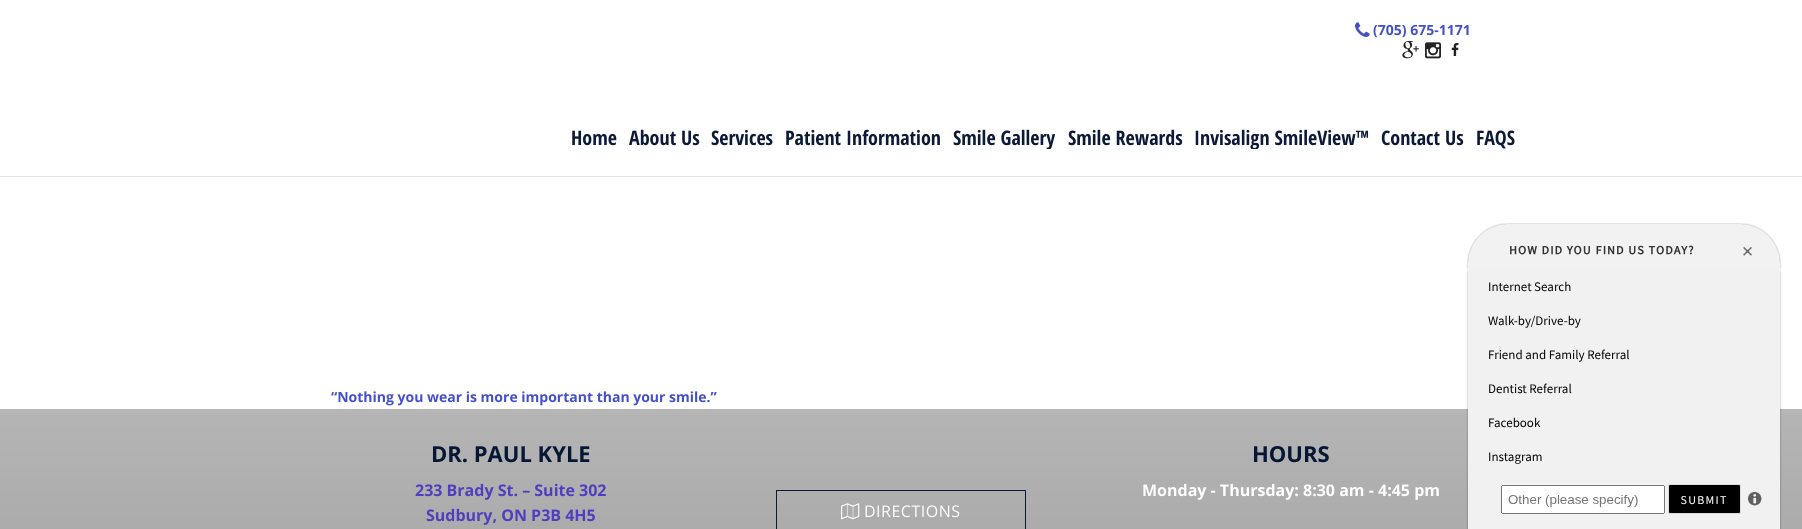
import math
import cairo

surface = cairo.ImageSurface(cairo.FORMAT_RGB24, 1802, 529)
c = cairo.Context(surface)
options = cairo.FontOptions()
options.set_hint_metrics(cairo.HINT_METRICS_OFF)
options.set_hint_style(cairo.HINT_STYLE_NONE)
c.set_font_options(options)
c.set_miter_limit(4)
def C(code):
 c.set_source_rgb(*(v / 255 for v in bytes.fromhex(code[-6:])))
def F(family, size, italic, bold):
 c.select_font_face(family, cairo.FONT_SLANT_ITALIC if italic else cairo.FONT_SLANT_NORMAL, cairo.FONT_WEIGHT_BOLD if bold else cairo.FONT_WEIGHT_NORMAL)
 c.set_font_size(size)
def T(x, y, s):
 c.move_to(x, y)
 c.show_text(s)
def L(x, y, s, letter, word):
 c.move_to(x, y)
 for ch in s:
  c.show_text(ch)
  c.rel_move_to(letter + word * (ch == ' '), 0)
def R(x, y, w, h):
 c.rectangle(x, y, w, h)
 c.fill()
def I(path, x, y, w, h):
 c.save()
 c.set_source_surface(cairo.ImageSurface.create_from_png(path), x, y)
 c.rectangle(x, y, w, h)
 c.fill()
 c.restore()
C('ffffff')
c.paint()
C('e4e4e4')
R(0,176,1802,1)
I('1.png',1355,22,15,15)
F('Open Sans',14,0,1)
C('4450c7')
T(1373,35,'(705) 675-1171')
I('2.png',1402,41,17,18)
I('3.png',1425,42,16,17)
I('4.png',1451,43,8,13)
F('Open Sans Condensed',20,0,1)
C('0c1a37')
T(571,145,'Home')
T(629,145,'About Us')
T(711,145,'Services')
T(785,145,'Patient Information')
c.save()
c.rectangle(565,126,956,23)
c.clip()
T(953,145,'Smile Gallery')
c.restore()
T(1068,145,'Smile Rewards')
c.save()
c.rectangle(565,126,956,23)
c.clip()
T(1194,145,'Invisalign SmileView™')
c.restore()
T(1381,145,'Contact Us')
T(1476,145,'FAQS')
F('Open Sans',14,0,1)
C('4450c7')
T(331,402,'“Nothing you wear is more important than your smile.”')
gradient = cairo.LinearGradient(901,409,901,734)
gradient.add_color_stop_rgba(0,0.71,0.71,0.71,1)
gradient.add_color_stop_rgba(1,0.608,0.608,0.608,1)
c.set_source(gradient)
R(0,409,1802,120)
F('Open Sans',22,0,1)
C('061635')
T(431,462,'DR. PAUL KYLE')
F('Open Sans',16,0,1)
C('4e3fbf')
T(415,496,'233 Brady St. – Suite 302')
T(426,521,'Sudbury, ON P3B 4H5')
F('Open Sans',22,0,1)
C('061635')
T(1252,462,'HOURS')
F('Open Sans',16,0,1)
C('ffffff')
T(1142,496,'Monday - Thursday: 8:30 am - 4:45 pm')
c.rectangle(776.5,490.5,249,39)
C('0c1a37')
c.set_line_width(1)
c.stroke()
I('5.png',841,503,19,17)
F('Open Sans',16,0,0)
C('ffffff')
L(864,517,'DIRECTIONS',.5,0)
I('6.png',1466,223,316,306)
surface.write_to_png('o.png')
